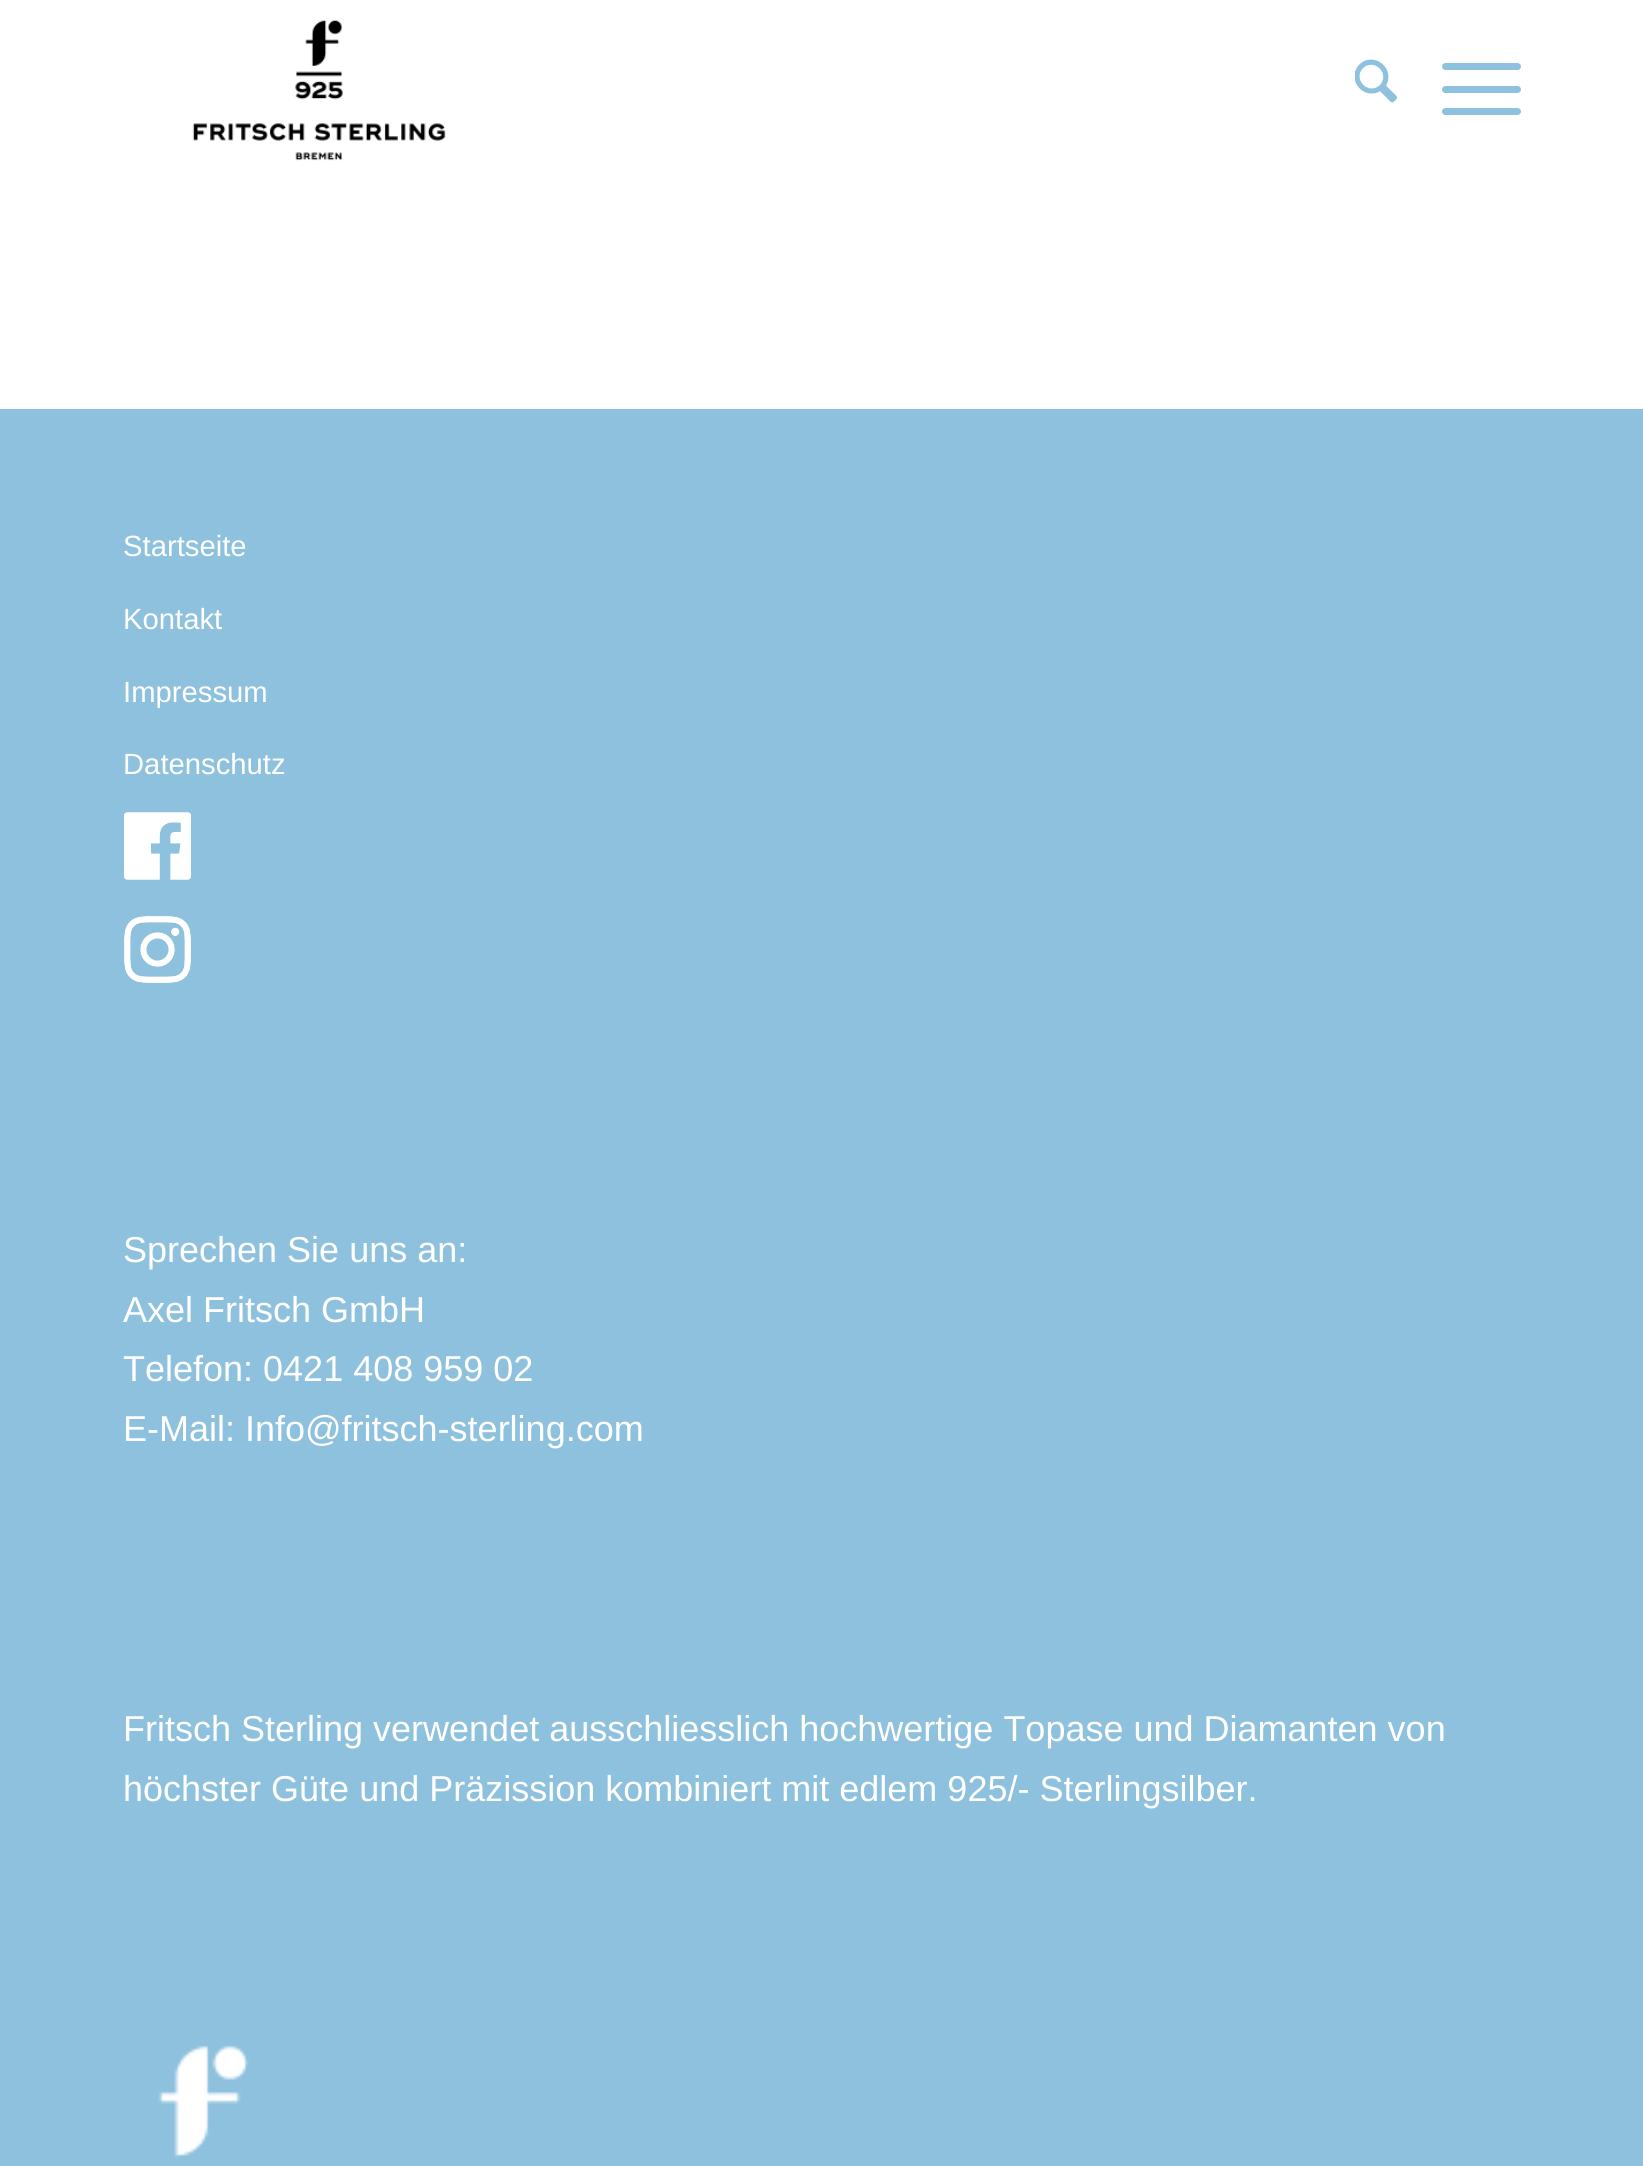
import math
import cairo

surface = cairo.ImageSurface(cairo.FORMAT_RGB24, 1643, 2166)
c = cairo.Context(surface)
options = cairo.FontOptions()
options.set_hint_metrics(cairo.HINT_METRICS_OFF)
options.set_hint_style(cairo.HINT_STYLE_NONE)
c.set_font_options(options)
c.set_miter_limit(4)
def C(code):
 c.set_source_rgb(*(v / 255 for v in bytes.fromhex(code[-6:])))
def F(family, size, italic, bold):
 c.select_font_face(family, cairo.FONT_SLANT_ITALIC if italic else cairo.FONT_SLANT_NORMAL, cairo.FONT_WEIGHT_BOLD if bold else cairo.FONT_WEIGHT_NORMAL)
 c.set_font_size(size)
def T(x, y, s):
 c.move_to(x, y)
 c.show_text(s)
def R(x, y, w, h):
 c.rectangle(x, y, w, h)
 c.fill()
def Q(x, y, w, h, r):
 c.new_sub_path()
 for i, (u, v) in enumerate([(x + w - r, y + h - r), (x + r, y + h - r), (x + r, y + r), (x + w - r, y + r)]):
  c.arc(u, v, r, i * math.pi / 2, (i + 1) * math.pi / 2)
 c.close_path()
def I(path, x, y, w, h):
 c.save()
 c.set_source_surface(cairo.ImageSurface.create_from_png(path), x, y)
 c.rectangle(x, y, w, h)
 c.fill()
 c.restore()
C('ffffff')
c.paint()
I('1.png',192,20,254,141)
I('2.png',1355,59,42,44)
C('8ec1dd')
Q(1442,86,79,7,3.5)
c.fill()
Q(1442,63,79,7,3.5)
c.fill()
Q(1442,108,79,7,3.5)
c.fill()
R(0,409,1643,1757)
C('fcfcfc')
R(0,407,1643,2)
F('Liberation Sans',29.25,0,0)
C('ffffff')
T(123,556,'Startseite')
T(123,629,'Kontakt')
T(123,702,'Impressum')
T(123,774,'Datenschutz')
I('3.png',124,812,67,68)
I('4.png',124,916,67,67)
F('Liberation Sans',36,0,0)
T(123,1262,'Sprechen Sie uns an:')
T(123,1322,'Axel Fritsch GmbH')
T(123,1381,'Telefon: 0421 408 959 02')
T(123,1441,'E-Mail: Info@fritsch-sterling.com')
T(123,1741,'Fritsch Sterling verwendet ausschliesslich hochwertige Topase und Diamanten von')
T(123,1801,'höchster Güte und Präzission kombiniert mit edlem 925/- Sterlingsilber.')
I('5.png',158,2045,91,113)
surface.write_to_png('o.png')
